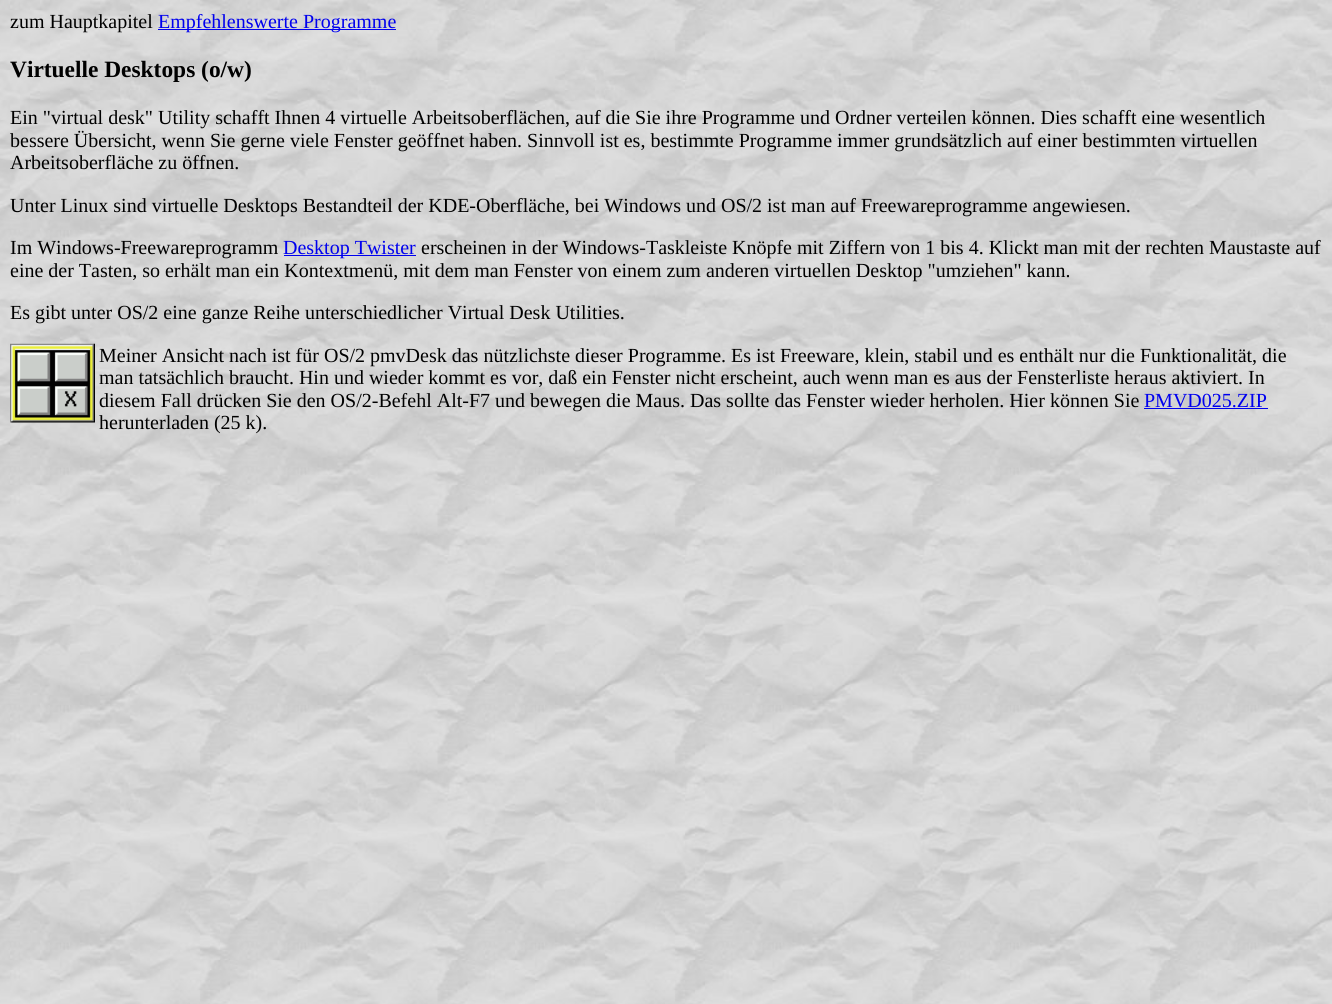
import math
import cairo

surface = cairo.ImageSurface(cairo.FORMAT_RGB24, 1332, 1004)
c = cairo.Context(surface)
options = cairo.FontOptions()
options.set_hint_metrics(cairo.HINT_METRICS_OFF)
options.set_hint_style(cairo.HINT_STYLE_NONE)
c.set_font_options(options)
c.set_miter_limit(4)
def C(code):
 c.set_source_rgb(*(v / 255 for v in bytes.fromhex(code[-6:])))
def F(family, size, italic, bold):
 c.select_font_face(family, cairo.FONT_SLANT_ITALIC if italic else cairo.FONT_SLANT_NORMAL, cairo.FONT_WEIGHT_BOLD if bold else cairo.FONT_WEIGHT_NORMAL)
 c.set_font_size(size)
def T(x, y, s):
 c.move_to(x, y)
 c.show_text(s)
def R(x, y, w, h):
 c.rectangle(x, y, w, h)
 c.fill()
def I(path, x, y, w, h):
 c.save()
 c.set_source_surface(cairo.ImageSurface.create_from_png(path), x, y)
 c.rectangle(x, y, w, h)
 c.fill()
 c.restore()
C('ffffff')
c.paint()
I('1.png',0,0,1332,1004)
F('Liberation Serif',20,0,0)
C('000000')
T(10,28,'zum Hauptkapitel')
C('0000ee')
R(158,29,238,1)
T(158,28,'Empfehlenswerte Programme')
F('Liberation Serif',23.4,0,1)
C('000000')
T(10,77,'Virtuelle Desktops (o/w)')
F('Liberation Serif',20,0,0)
T(10,124,'Ein "virtual desk" Utility schafft Ihnen 4 virtuelle Arbeitsoberflächen, auf die Sie ihre Programme und Ordner verteilen können. Dies schafft eine wesentlich')
T(10,147,'bessere Übersicht, wenn Sie gerne viele Fenster geöffnet haben. Sinnvoll ist es, bestimmte Programme immer grundsätzlich auf einer bestimmten virtuellen')
T(10,169,'Arbeitsoberfläche zu öffnen.')
T(10,212,'Unter Linux sind virtuelle Desktops Bestandteil der KDE-Oberfläche, bei Windows und OS/2 ist man auf Freewareprogramme angewiesen.')
T(10,254,'Im Windows-Freewareprogramm')
C('0000ee')
R(284,255,132,1)
T(283,254,'Desktop Twister')
C('000000')
T(421,254,'erscheinen in der Windows-Taskleiste Knöpfe mit Ziffern von 1 bis 4. Klickt man mit der rechten Maustaste auf')
T(10,277,'eine der Tasten, so erhält man ein Kontextmenü, mit dem man Fenster von einem zum anderen virtuellen Desktop "umziehen" kann.')
T(10,319,'Es gibt unter OS/2 eine ganze Reihe unterschiedlicher Virtual Desk Utilities.')
I('2.png',10,343,85,80)
T(99,362,'Meiner Ansicht nach ist für OS/2 pmvDesk das nützlichste dieser Programme. Es ist Freeware, klein, stabil und es enthält nur die Funktionalität, die')
T(99,384,'man tatsächlich braucht. Hin und wieder kommt es vor, daß ein Fenster nicht erscheint, auch wenn man es aus der Fensterliste heraus aktiviert. In')
T(99,407,'diesem Fall drücken Sie den OS/2-Befehl Alt-F7 und bewegen die Maus. Das sollte das Fenster wieder herholen. Hier können Sie')
C('0000ee')
T(1144,407,'PMVD025.ZIP')
R(1144,408,124,1)
C('000000')
T(99,429,'herunterladen (25 k).')
surface.write_to_png('o.png')
